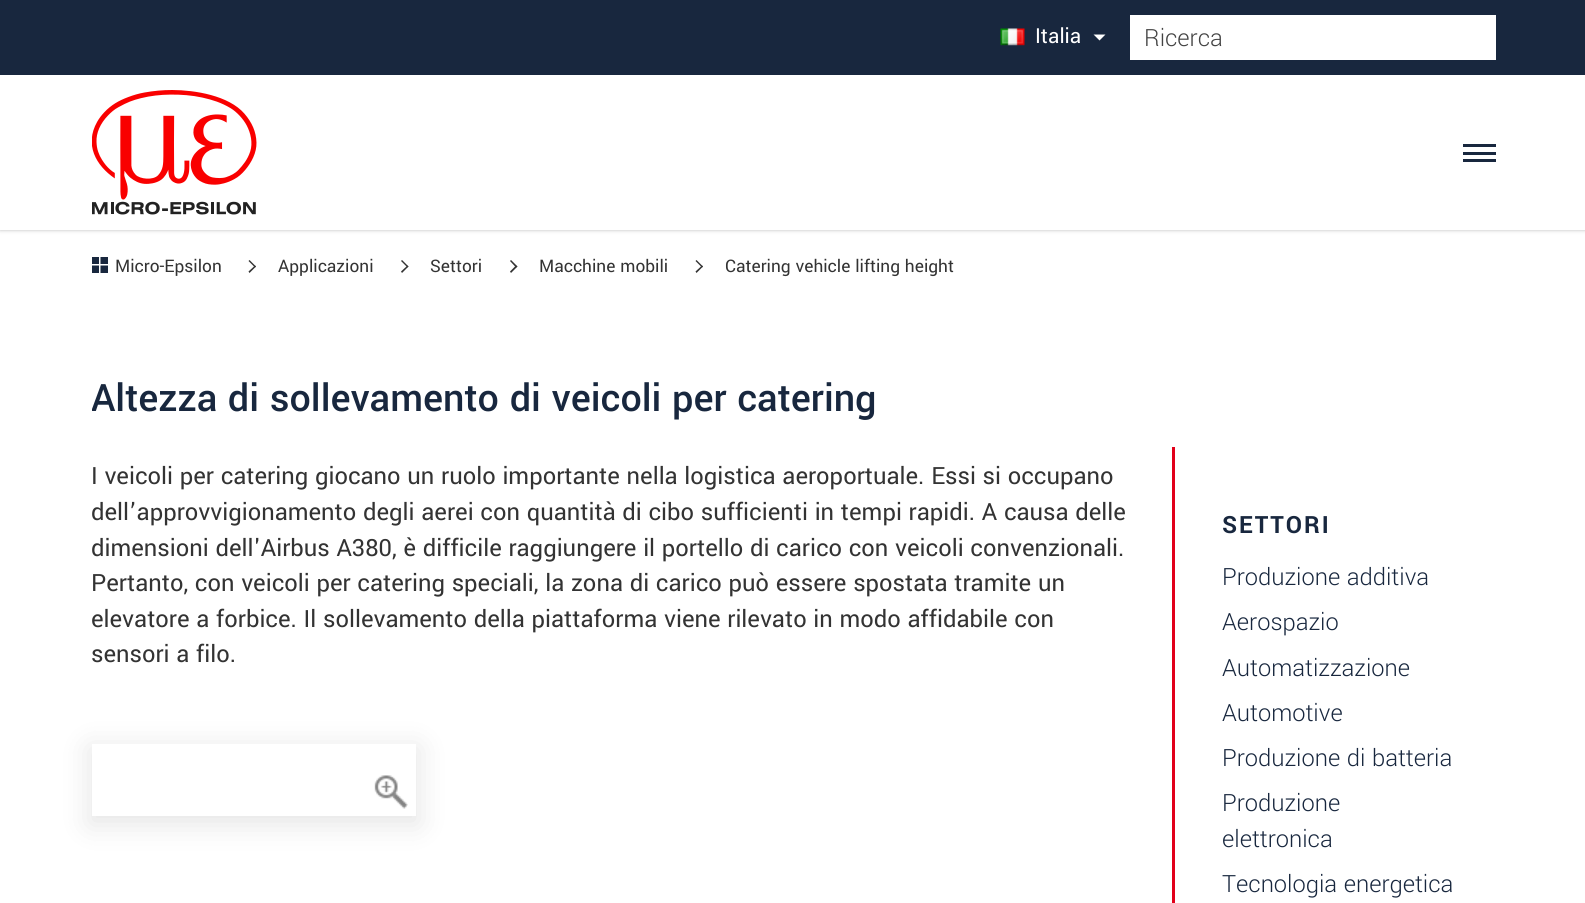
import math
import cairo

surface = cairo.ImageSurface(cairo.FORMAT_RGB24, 1585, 903)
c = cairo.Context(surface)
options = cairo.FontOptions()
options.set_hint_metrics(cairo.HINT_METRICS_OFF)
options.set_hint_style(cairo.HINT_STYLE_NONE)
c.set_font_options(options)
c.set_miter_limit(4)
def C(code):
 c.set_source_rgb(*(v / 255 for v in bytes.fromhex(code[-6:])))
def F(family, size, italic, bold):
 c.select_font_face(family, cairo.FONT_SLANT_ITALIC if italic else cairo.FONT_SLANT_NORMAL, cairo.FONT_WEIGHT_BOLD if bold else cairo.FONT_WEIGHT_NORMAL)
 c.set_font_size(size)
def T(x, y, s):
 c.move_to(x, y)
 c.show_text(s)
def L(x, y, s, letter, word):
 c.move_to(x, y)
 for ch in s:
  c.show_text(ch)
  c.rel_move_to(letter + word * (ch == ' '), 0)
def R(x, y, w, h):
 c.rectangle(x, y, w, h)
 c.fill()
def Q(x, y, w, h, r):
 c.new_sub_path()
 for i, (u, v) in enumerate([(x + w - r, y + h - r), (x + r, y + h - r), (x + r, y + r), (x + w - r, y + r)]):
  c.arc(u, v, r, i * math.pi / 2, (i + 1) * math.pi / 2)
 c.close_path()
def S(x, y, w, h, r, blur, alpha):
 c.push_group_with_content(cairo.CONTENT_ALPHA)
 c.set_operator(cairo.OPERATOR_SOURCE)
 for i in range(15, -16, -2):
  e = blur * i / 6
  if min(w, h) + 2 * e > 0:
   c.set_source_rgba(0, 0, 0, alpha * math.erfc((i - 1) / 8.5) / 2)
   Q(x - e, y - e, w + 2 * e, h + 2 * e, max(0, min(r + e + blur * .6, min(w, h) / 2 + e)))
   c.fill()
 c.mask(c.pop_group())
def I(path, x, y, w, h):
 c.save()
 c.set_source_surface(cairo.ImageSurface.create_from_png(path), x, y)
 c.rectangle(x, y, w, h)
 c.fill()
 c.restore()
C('ffffff')
c.paint()
c.save()
c.set_fill_rule(cairo.FILL_RULE_EVEN_ODD)
c.new_path()
c.move_to(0,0)
c.line_to(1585,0)
c.line_to(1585,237)
c.line_to(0,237)
c.close_path()
c.move_to(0,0)
c.line_to(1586,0)
c.line_to(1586,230)
c.line_to(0,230)
c.close_path()
c.clip()
C('bbbbbb')
S(0,0,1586,230,0,2,1)
c.restore()
c.set_source_rgba(1,1,1,0.96)
R(0,229,1585,1)
C('18273e')
R(0,0,1585,75)
I('1.png',1000,28,25,18)
F('Yantramanav',23,0,0)
C('ffffff')
T(1035,43,'Italia')
c.new_path()
c.move_to(1093.5,34.5)
c.line_to(1105.5,34.5)
c.line_to(1099.5,40.5)
c.close_path()
c.fill()
R(1130,15,366,45)
F('Yantramanav Light',26.4,0,0)
C('434343')
T(1144,46,'Ricerca')
I('2.png',92,90,165,125)
C('18273e')
R(1463,144,33,3)
R(1463,152,33,3)
R(1463,159,33,3)
I('3.png',92,257,16,16)
F('Yantramanav',19.25,0,0)
C('333333')
T(115,272,'Micro-Epsilon')
c.new_path()
c.move_to(249.5,260)
c.line_to(256,266.5)
c.line_to(255,267.5)
c.line_to(248.5,261)
c.close_path()
c.fill()
c.new_path()
c.move_to(255,265.5)
c.line_to(256,266.5)
c.line_to(249.5,273)
c.line_to(248.5,271.5)
c.close_path()
c.fill()
T(278,272,'Applicazioni')
c.new_path()
c.move_to(402,260)
c.line_to(408.5,266.5)
c.line_to(407.5,267.5)
c.line_to(401,261)
c.close_path()
c.fill()
c.new_path()
c.move_to(407.5,265.5)
c.line_to(408.5,266.5)
c.line_to(402,273)
c.line_to(401,271.5)
c.close_path()
c.fill()
T(430,272,'Settori')
c.new_path()
c.move_to(511,260)
c.line_to(517.5,266.5)
c.line_to(516,267.5)
c.line_to(510,261)
c.close_path()
c.fill()
c.new_path()
c.move_to(516,265.5)
c.line_to(517.5,266.5)
c.line_to(511,273)
c.line_to(510,271.5)
c.close_path()
c.fill()
T(539,272,'Macchine mobili')
c.new_path()
c.move_to(696.5,260)
c.line_to(703,266.5)
c.line_to(702,267.5)
c.line_to(695.5,261)
c.close_path()
c.fill()
c.new_path()
c.move_to(702,265.5)
c.line_to(703,266.5)
c.line_to(696.5,273)
c.line_to(695.5,271.5)
c.close_path()
c.fill()
T(725,272,'Catering vehicle lifting height')
c.save()
c.rectangle(92,375,1044,297)
c.clip()
F('Yantramanav Medium',42,0,0)
C('18273e')
T(91,411,'Altezza di sollevamento di veicoli per catering')
c.restore()
F('Yantramanav',26.4,0,0)
T(91,484,'I veicoli per catering giocano un ruolo importante nella logistica aeroportuale. Essi si occupano')
T(91,520,'dell’approvvigionamento degli aerei con quantità di cibo sufficienti in tempi rapidi. A causa delle')
T(91,556,'dimensioni dell\'Airbus A380, è difficile raggiungere il portello di carico con veicoli convenzionali.')
T(91,591,'Pertanto, con veicoli per catering speciali, la zona di carico può essere spostata tramite un')
T(91,627,'elevatore a forbice. Il sollevamento della piattaforma viene rilevato in modo affidabile con')
T(91,662,'sensori a filo.')
c.save()
c.set_fill_rule(cairo.FILL_RULE_EVEN_ODD)
c.new_path()
c.move_to(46,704)
c.line_to(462,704)
c.line_to(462,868)
c.line_to(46,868)
c.close_path()
c.move_to(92,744)
c.line_to(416,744)
c.line_to(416,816)
c.line_to(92,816)
c.close_path()
c.clip()
C('000000')
S(89,747,330,78,0,14,.1)
c.restore()
I('4.png',374,775,34,34)
C('e2001a')
R(1172,447,3,456)
F('Yantramanav',26.4,0,1)
C('18273e')
L(1222,533,'SETTORI',2,0)
F('Yantramanav Light',26.4,0,0)
T(1222,585,'Produzione additiva')
T(1222,630,'Aerospazio')
T(1222,676,'Automatizzazione')
T(1222,721,'Automotive')
T(1222,766,'Produzione di batteria')
T(1222,811,'Produzione')
c.save()
c.rectangle(1223,782,273,81)
c.clip()
T(1222,847,'elettronica')
c.restore()
T(1222,892,'Tecnologia energetica')
surface.write_to_png('o.png')
